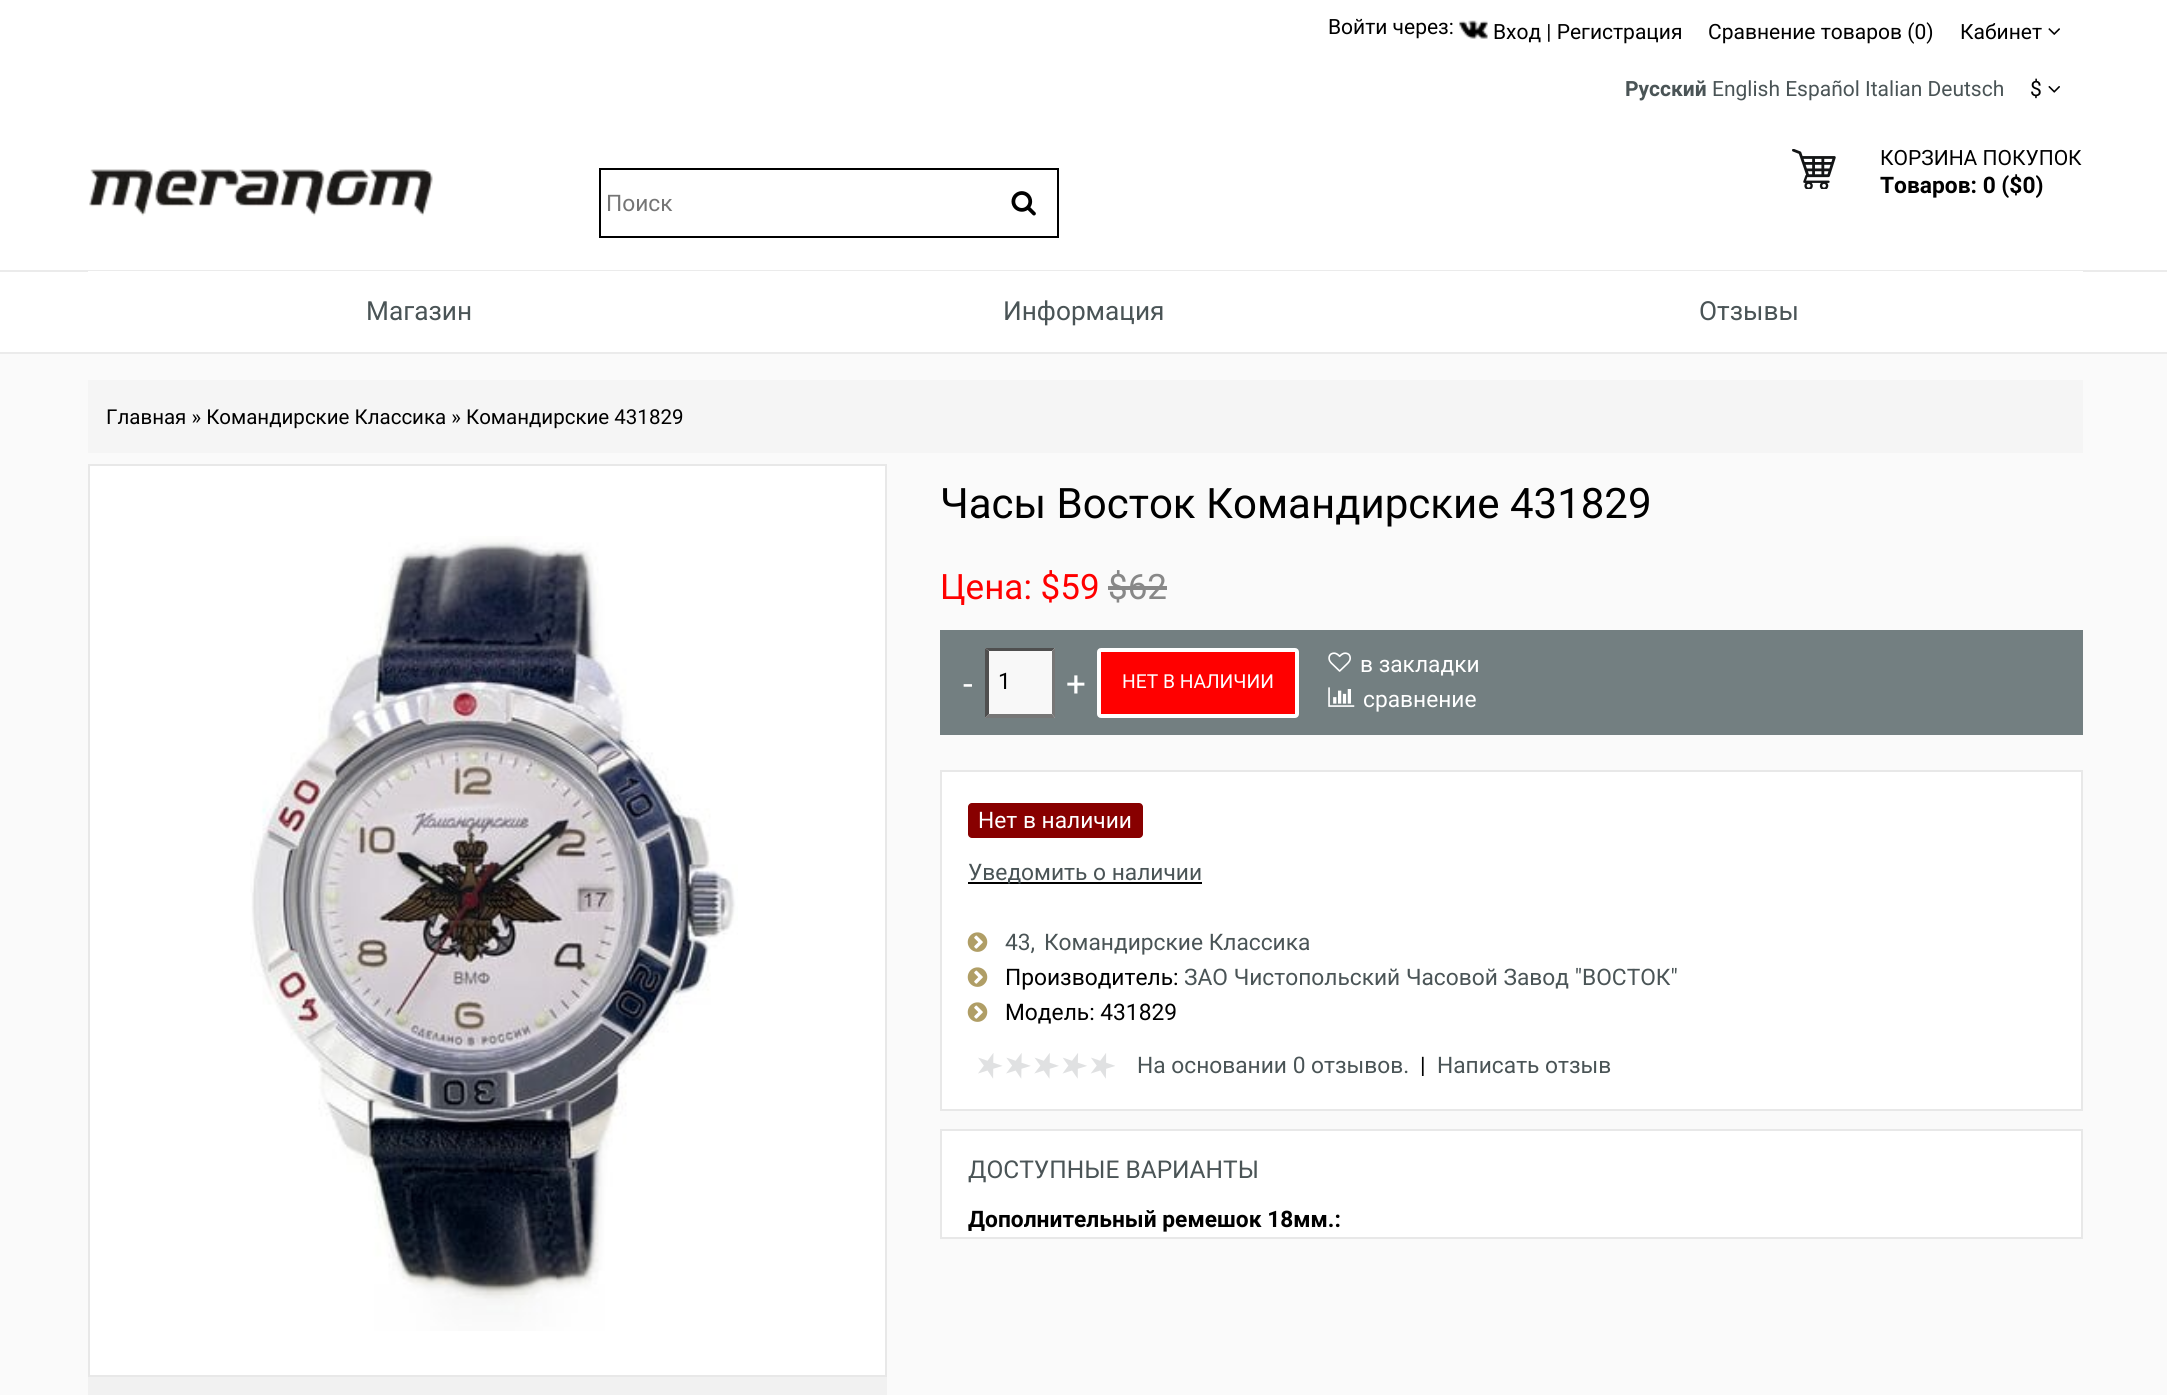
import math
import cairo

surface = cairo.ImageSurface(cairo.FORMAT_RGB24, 2167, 1395)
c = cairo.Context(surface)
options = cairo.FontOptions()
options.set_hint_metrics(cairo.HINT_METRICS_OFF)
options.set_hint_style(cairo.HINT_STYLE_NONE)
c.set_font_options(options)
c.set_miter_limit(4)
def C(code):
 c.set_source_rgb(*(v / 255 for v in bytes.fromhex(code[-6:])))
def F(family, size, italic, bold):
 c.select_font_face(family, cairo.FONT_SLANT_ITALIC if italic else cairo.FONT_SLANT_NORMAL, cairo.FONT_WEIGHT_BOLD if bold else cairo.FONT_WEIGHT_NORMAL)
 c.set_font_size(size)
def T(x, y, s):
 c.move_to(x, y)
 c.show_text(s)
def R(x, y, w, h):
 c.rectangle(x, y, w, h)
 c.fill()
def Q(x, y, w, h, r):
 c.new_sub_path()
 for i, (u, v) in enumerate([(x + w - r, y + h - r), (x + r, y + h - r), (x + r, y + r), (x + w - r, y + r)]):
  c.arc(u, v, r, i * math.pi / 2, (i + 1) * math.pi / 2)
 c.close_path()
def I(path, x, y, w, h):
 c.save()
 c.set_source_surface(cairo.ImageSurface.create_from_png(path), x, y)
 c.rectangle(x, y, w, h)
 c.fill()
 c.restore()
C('fafafa')
c.paint()
C('ffffff')
R(0,0,2167,352)
F('Roboto',21,0,0)
C('000000')
T(1328,34,'Войти через:')
I('1.png',1459,20,29,19)
T(1493,39,'Вход | Регистрация')
T(1708,39,'Сравнение товаров (0)')
T(1960,39,'Кабинет')
I('2.png',2048,28,12,7)
F('Roboto',21,0,1)
C('4a5456')
T(1625,96,'Русский')
F('Roboto',21,0,0)
T(1712,96,'English Español Italian Deutsch')
C('000000')
T(2030,96,'$')
I('3.png',2048,86,12,7)
I('4.png',89,169,344,47)
c.rectangle(600,169,458,68)
c.stroke()
F('Roboto',22.75,0,0)
C('757575')
T(606,211,'Поиск')
I('5.png',1011,191,25,25)
I('6.png',1792,149,44,40)
F('Roboto',21,0,0)
C('000000')
T(1880,165,'КОРЗИНА ПОКУПОК')
F('Roboto',22.75,0,1)
T(1880,193,'Товаров: 0 ($0)')
C('ebebeb')
R(0,270,2167,2)
R(0,352,2167,2)
C('ffffff')
R(88,271,1995,1)
F('Roboto',26.25,0,0)
C('4a5456')
T(366,320,'Магазин')
T(1003,320,'Информация')
T(1699,320,'Отзывы')
C('f5f5f5')
R(88,380,1995,73)
F('Roboto',20.5,0,0)
C('000000')
T(106,424,'Главная » Командирские Классика » Командирские 431829')
C('ffffff')
c.rectangle(89,465,797,911)
c.fill_preserve()
C('e8e8e8')
c.stroke()
I('7.png',250,536,488,795)
C('f1f1f1')
R(88,1377,799,18)
F('Roboto',42,0,0)
C('000000')
T(940,518,'Часы Восток Командирские 431829')
F('Roboto',35,0,0)
C('ff0000')
T(940,599,'Цена: $59')
C('888888')
T(1108,599,'$62')
R(1108,586,59,4)
C('737f81')
R(940,630,1143,105)
C('ffffff')
T(963,696,'-')
C('f8f8f8')
R(985,648,70,70)
C('4f4f4f')
c.new_path()
c.move_to(985,648)
c.line_to(1055,648)
c.line_to(1052,651)
c.line_to(989,651)
c.close_path()
c.fill()
C('767676')
c.new_path()
c.move_to(1055,648)
c.line_to(1055,718)
c.line_to(1052,714)
c.line_to(1052,651)
c.close_path()
c.fill()
c.new_path()
c.move_to(1055,718)
c.line_to(985,718)
c.line_to(989,714)
c.line_to(1052,714)
c.close_path()
c.fill()
C('4f4f4f')
c.new_path()
c.move_to(985,718)
c.line_to(985,648)
c.line_to(989,651)
c.line_to(989,714)
c.close_path()
c.fill()
F('Roboto',22.75,0,0)
C('000000')
T(998,689,'1')
F('Roboto',35,0,0)
C('ffffff')
T(1066,696,'+')
C('ff0000')
Q(1099,650,198,66,2)
c.fill_preserve()
C('ffffff')
c.set_line_width(4)
c.stroke()
F('Roboto',19.25,0,0)
T(1122,688,'НЕТ В НАЛИЧИИ')
I('8.png',1328,652,23,20)
F('Roboto',22.75,0,0)
T(1360,672,'в закладки')
I('9.png',1328,687,27,20)
T(1363,707,'сравнение')
c.rectangle(941,771,1141,339)
c.fill_preserve()
C('e8e8e8')
c.set_line_width(2)
c.stroke()
C('880000')
Q(968,803,175,35,4)
c.fill()
C('ffffff')
T(978,828,'Нет в наличии')
C('000000')
R(968,882,234,2)
C('4a5456')
T(968,880,'Уведомить о наличии')
I('10.png',967,932,21,20)
T(1005,950,'43,')
T(1044,950,'Командирские Классика')
I('10.png',967,967,21,20)
C('000000')
T(1005,985,'Производитель:')
C('4a5456')
T(1184,985,'ЗАО Чистопольский Часовой Завод "ВОСТОК"')
I('10.png',967,1002,21,20)
C('000000')
T(1005,1020,'Модель: 431829')
I('11.png',978,1053,137,26)
C('4a5456')
T(1137,1073,'На основании 0 отзывов.')
C('000000')
T(1420,1073,'|')
C('4a5456')
T(1437,1073,'Написать отзыв')
C('ffffff')
c.rectangle(941,1130,1141,108)
c.fill_preserve()
C('e8e8e8')
c.stroke()
F('Roboto',24.5,0,0)
C('4a5456')
T(968,1178,'ДОСТУПНЫЕ ВАРИАНТЫ')
F('Roboto',22.75,0,1)
C('000000')
T(968,1227,'Дополнительный ремешок 18мм.:')
surface.write_to_png('o.png')
